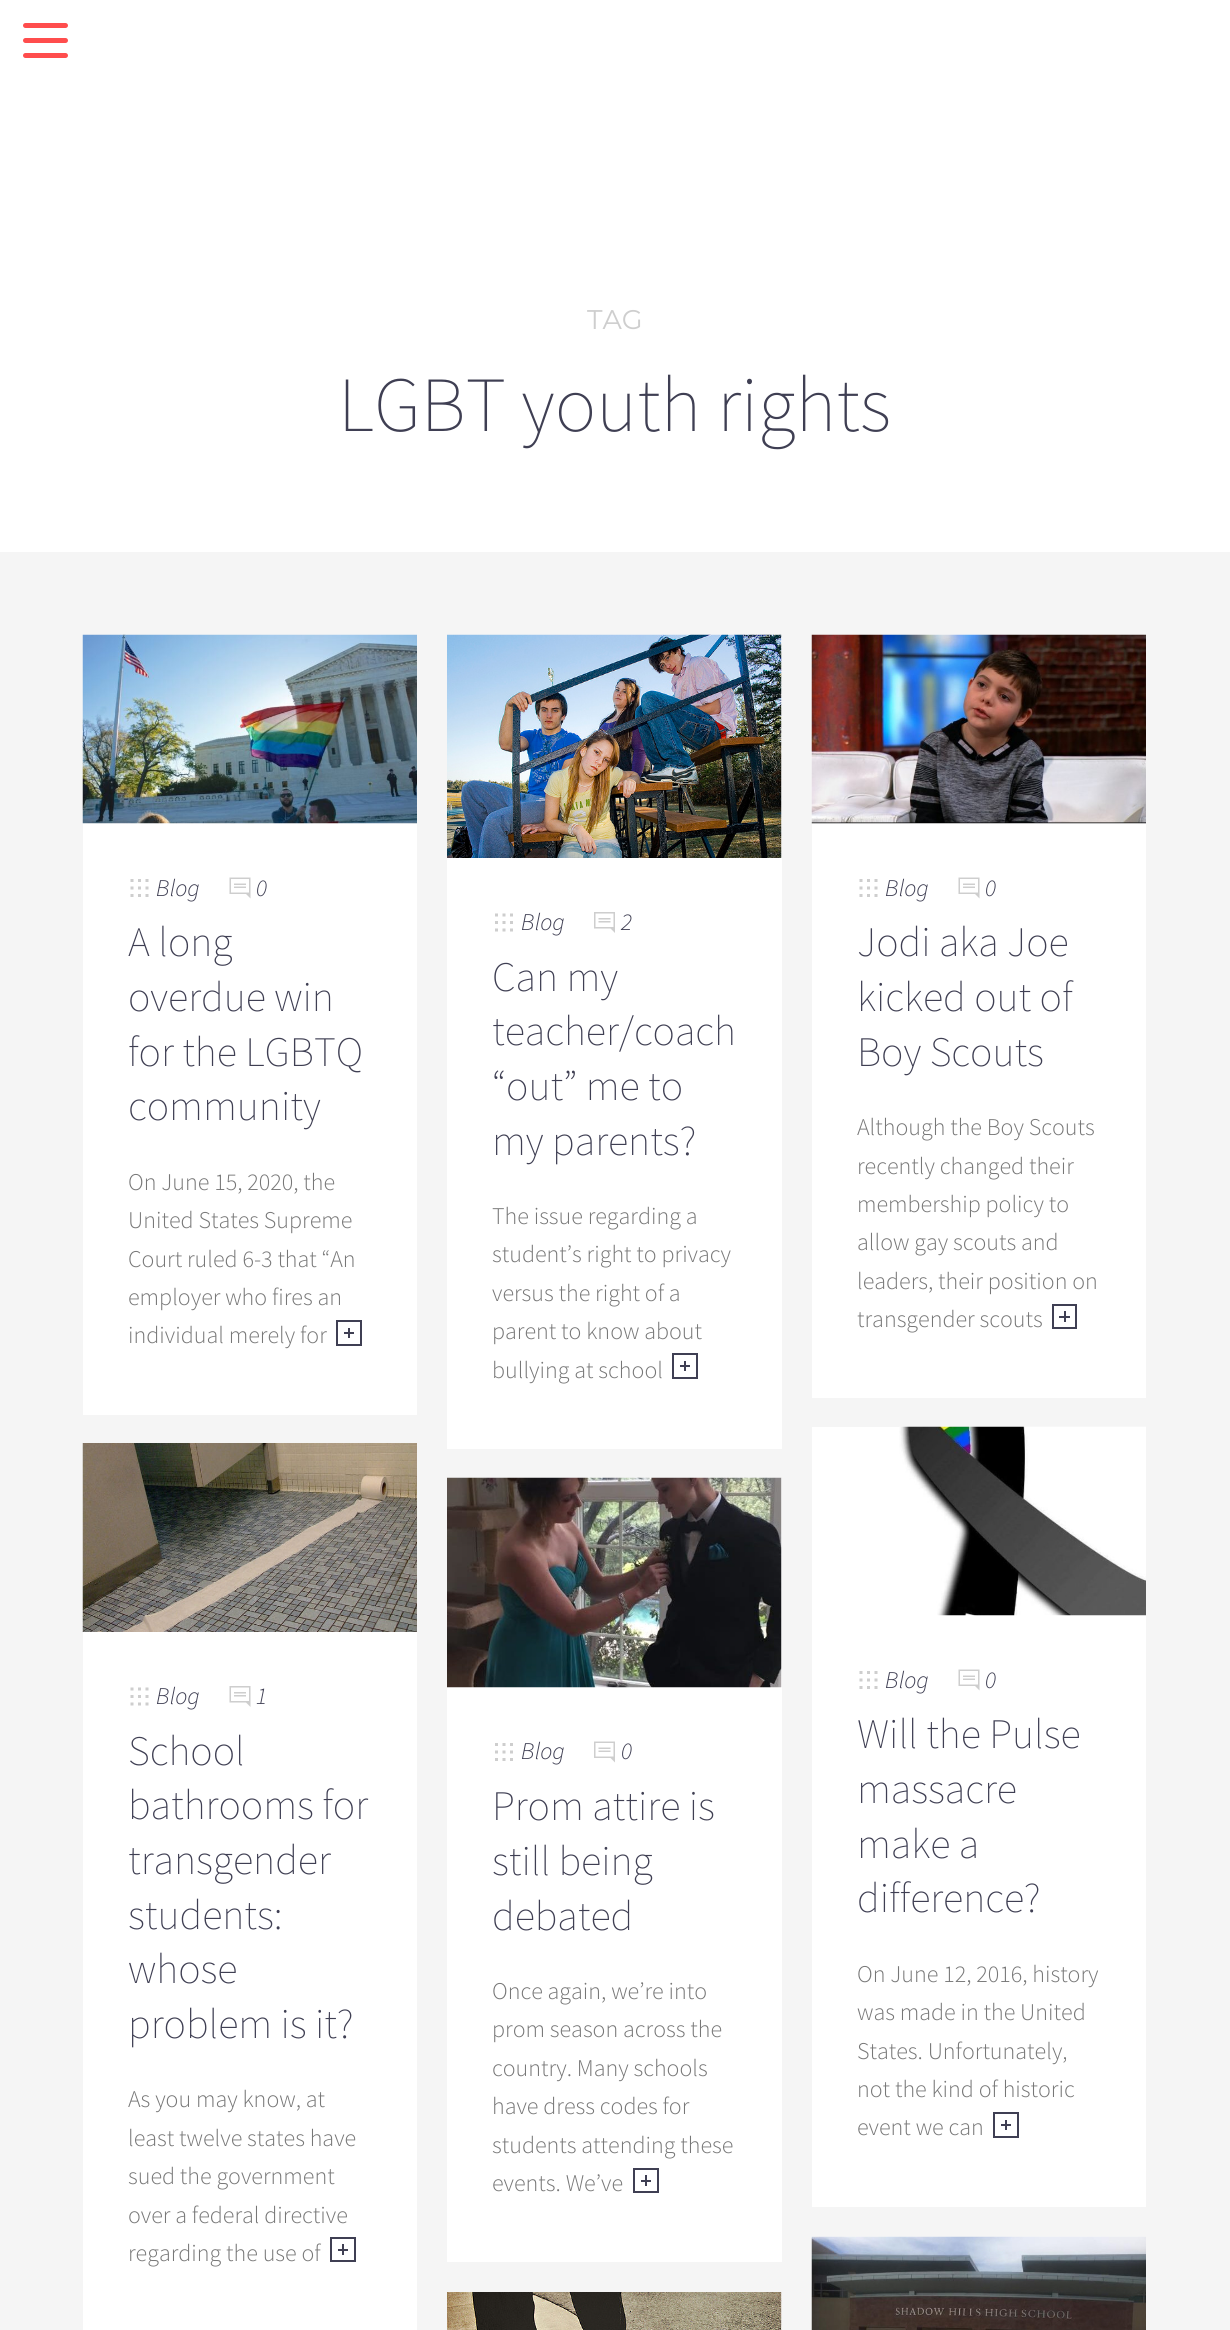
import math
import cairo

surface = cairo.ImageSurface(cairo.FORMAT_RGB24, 1230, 2330)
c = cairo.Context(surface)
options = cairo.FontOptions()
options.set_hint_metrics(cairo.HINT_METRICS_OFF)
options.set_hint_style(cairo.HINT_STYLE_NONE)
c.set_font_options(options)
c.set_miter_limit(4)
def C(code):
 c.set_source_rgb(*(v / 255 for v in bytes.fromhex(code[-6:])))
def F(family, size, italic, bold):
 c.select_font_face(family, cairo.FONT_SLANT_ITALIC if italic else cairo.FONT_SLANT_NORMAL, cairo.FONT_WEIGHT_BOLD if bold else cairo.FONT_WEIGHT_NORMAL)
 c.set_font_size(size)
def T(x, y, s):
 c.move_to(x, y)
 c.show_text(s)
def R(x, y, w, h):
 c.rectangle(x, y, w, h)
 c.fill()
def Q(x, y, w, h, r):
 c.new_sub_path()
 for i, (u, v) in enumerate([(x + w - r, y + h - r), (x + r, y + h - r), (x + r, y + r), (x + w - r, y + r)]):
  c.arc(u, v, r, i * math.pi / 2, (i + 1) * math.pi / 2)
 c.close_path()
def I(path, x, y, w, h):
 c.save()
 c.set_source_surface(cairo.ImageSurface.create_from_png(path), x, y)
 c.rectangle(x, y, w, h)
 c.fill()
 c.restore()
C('ffffff')
c.paint()
C('ff4d4d')
Q(23,38,45,5,2.5)
c.fill()
Q(23,23,45,5,2.5)
c.fill()
Q(23,53,45,5,2.5)
c.fill()
F('Montserrat Thin',27,0,0)
C('cecece')
T(587,329,'TAG')
F('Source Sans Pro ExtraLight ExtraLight',78,0,0)
C('3f3f53')
T(338,431,'LGBT youth rights')
C('f5f5f5')
R(0,552,1230,1778)
C('ffffff')
R(83,823,334,592)
I('1.png',82,634,335,190)
I('2.png',130,879,19,18)
F('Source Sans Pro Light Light',24,1,0)
C('3f3f53')
T(156,896,'Blog')
I('3.png',229,877,22,22)
T(256,896,'0')
F('Source Sans Pro ExtraLight ExtraLight',42,0,0)
T(128,956,'A long')
T(128,1011,'overdue win')
T(128,1066,'for the LGBTQ')
T(128,1120,'community')
F('Source Sans Pro Light Light',24,0,0)
C('777777')
T(128,1190,'On June 15, 2020, the')
T(128,1228,'United States Supreme')
T(128,1267,'Court ruled 6-3 that “An')
T(128,1305,'employer who fires an')
T(128,1343,'individual merely for')
c.rectangle(337,1321,24,24)
C('3f3f53')
c.stroke()
R(344,1332,10,2)
R(348,1328,2,10)
C('ffffff')
R(447,635,335,814)
I('4.png',447,634,335,224)
I('5.png',495,913,18,19)
F('Source Sans Pro Light Light',24,1,0)
C('3f3f53')
T(521,930,'Blog')
I('6.png',594,912,21,21)
T(621,930,'2')
F('Source Sans Pro ExtraLight ExtraLight',42,0,0)
T(492,991,'Can my')
T(492,1045,'teacher/coach')
T(492,1100,'“out” me to')
T(492,1155,'my parents?')
F('Source Sans Pro Light Light',24,0,0)
C('777777')
T(492,1224,'The issue regarding a')
T(492,1262,'student’s right to privacy')
T(492,1301,'versus the right of a')
T(492,1339,'parent to know about')
T(492,1378,'bullying at school')
c.rectangle(673,1354,24,24)
C('3f3f53')
c.stroke()
R(680,1365,10,2)
R(684,1361,2,10)
C('ffffff')
R(812,823,334,575)
I('7.png',811,634,335,190)
I('2.png',859,879,19,18)
F('Source Sans Pro Light Light',24,1,0)
C('3f3f53')
T(885,896,'Blog')
I('3.png',958,877,22,22)
T(985,896,'0')
F('Source Sans Pro ExtraLight ExtraLight',42,0,0)
T(857,956,'Jodi aka Joe')
T(857,1011,'kicked out of')
T(857,1066,'Boy Scouts')
F('Source Sans Pro Light Light',24,0,0)
C('777777')
T(857,1135,'Although the Boy Scouts')
T(857,1174,'recently changed their')
T(857,1212,'membership policy to')
T(857,1250,'allow gay scouts and')
T(857,1289,'leaders, their position on')
T(857,1327,'transgender scouts')
c.rectangle(1053,1305,23,23)
C('3f3f53')
c.stroke()
R(1059,1316,11,2)
R(1064,1311,2,11)
C('ffffff')
R(83,1632,334,698)
I('8.png',82,1443,335,189)
I('9.png',130,1687,19,19)
F('Source Sans Pro Light Light',24,1,0)
C('3f3f53')
T(156,1704,'Blog')
I('10.png',229,1686,22,21)
T(256,1704,'1')
F('Source Sans Pro ExtraLight ExtraLight',42,0,0)
T(128,1765,'School')
T(128,1819,'bathrooms for')
T(128,1874,'transgender')
T(128,1929,'students:')
T(128,1983,'whose')
T(128,2038,'problem is it?')
F('Source Sans Pro Light Light',24,0,0)
C('777777')
T(128,2107,'As you may know, at')
T(128,2146,'least twelve states have')
T(128,2184,'sued the government')
T(128,2223,'over a federal directive')
T(128,2261,'regarding the use of')
c.rectangle(331,2238,24,23)
C('3f3f53')
c.stroke()
R(338,2249,10,2)
R(342,2244,2,11)
C('ffffff')
R(447,1478,335,784)
I('11.png',447,1477,335,211)
I('12.png',495,1743,18,18)
F('Source Sans Pro Light Light',24,1,0)
C('3f3f53')
T(521,1759,'Blog')
I('13.png',594,1741,21,22)
T(621,1759,'0')
F('Source Sans Pro ExtraLight ExtraLight',42,0,0)
T(492,1820,'Prom attire is')
T(492,1875,'still being')
T(492,1930,'debated')
F('Source Sans Pro Light Light',24,0,0)
C('777777')
T(492,1999,'Once again, we’re into')
T(492,2037,'prom season across the')
T(492,2076,'country. Many schools')
T(492,2114,'have dress codes for')
T(492,2153,'students attending these')
T(492,2191,'events. We’ve')
c.rectangle(634,2169,24,23)
C('3f3f53')
c.stroke()
R(641,2180,10,2)
R(645,2175,2,11)
C('ffffff')
R(812,1427,334,780)
I('14.png',899,1426,247,190)
I('2.png',859,1671,19,18)
F('Source Sans Pro Light Light',24,1,0)
C('3f3f53')
T(885,1688,'Blog')
I('3.png',958,1669,22,22)
T(985,1688,'0')
F('Source Sans Pro ExtraLight ExtraLight',42,0,0)
T(857,1748,'Will the Pulse')
T(857,1803,'massacre')
T(857,1858,'make a')
T(857,1912,'difference?')
F('Source Sans Pro Light Light',24,0,0)
C('777777')
T(857,1982,'On June 12, 2016, history')
T(857,2020,'was made in the United')
T(857,2059,'States. Unfortunately,')
T(857,2097,'not the kind of historic')
T(857,2135,'event we can')
c.rectangle(994,2113,24,24)
C('3f3f53')
c.stroke()
R(1001,2124,10,2)
R(1005,2120,2,10)
C('ffffff')
R(781,2292,1,38)
I('15.png',447,2292,335,38)
I('16.png',811,2236,335,94)
surface.write_to_png('o.png')
